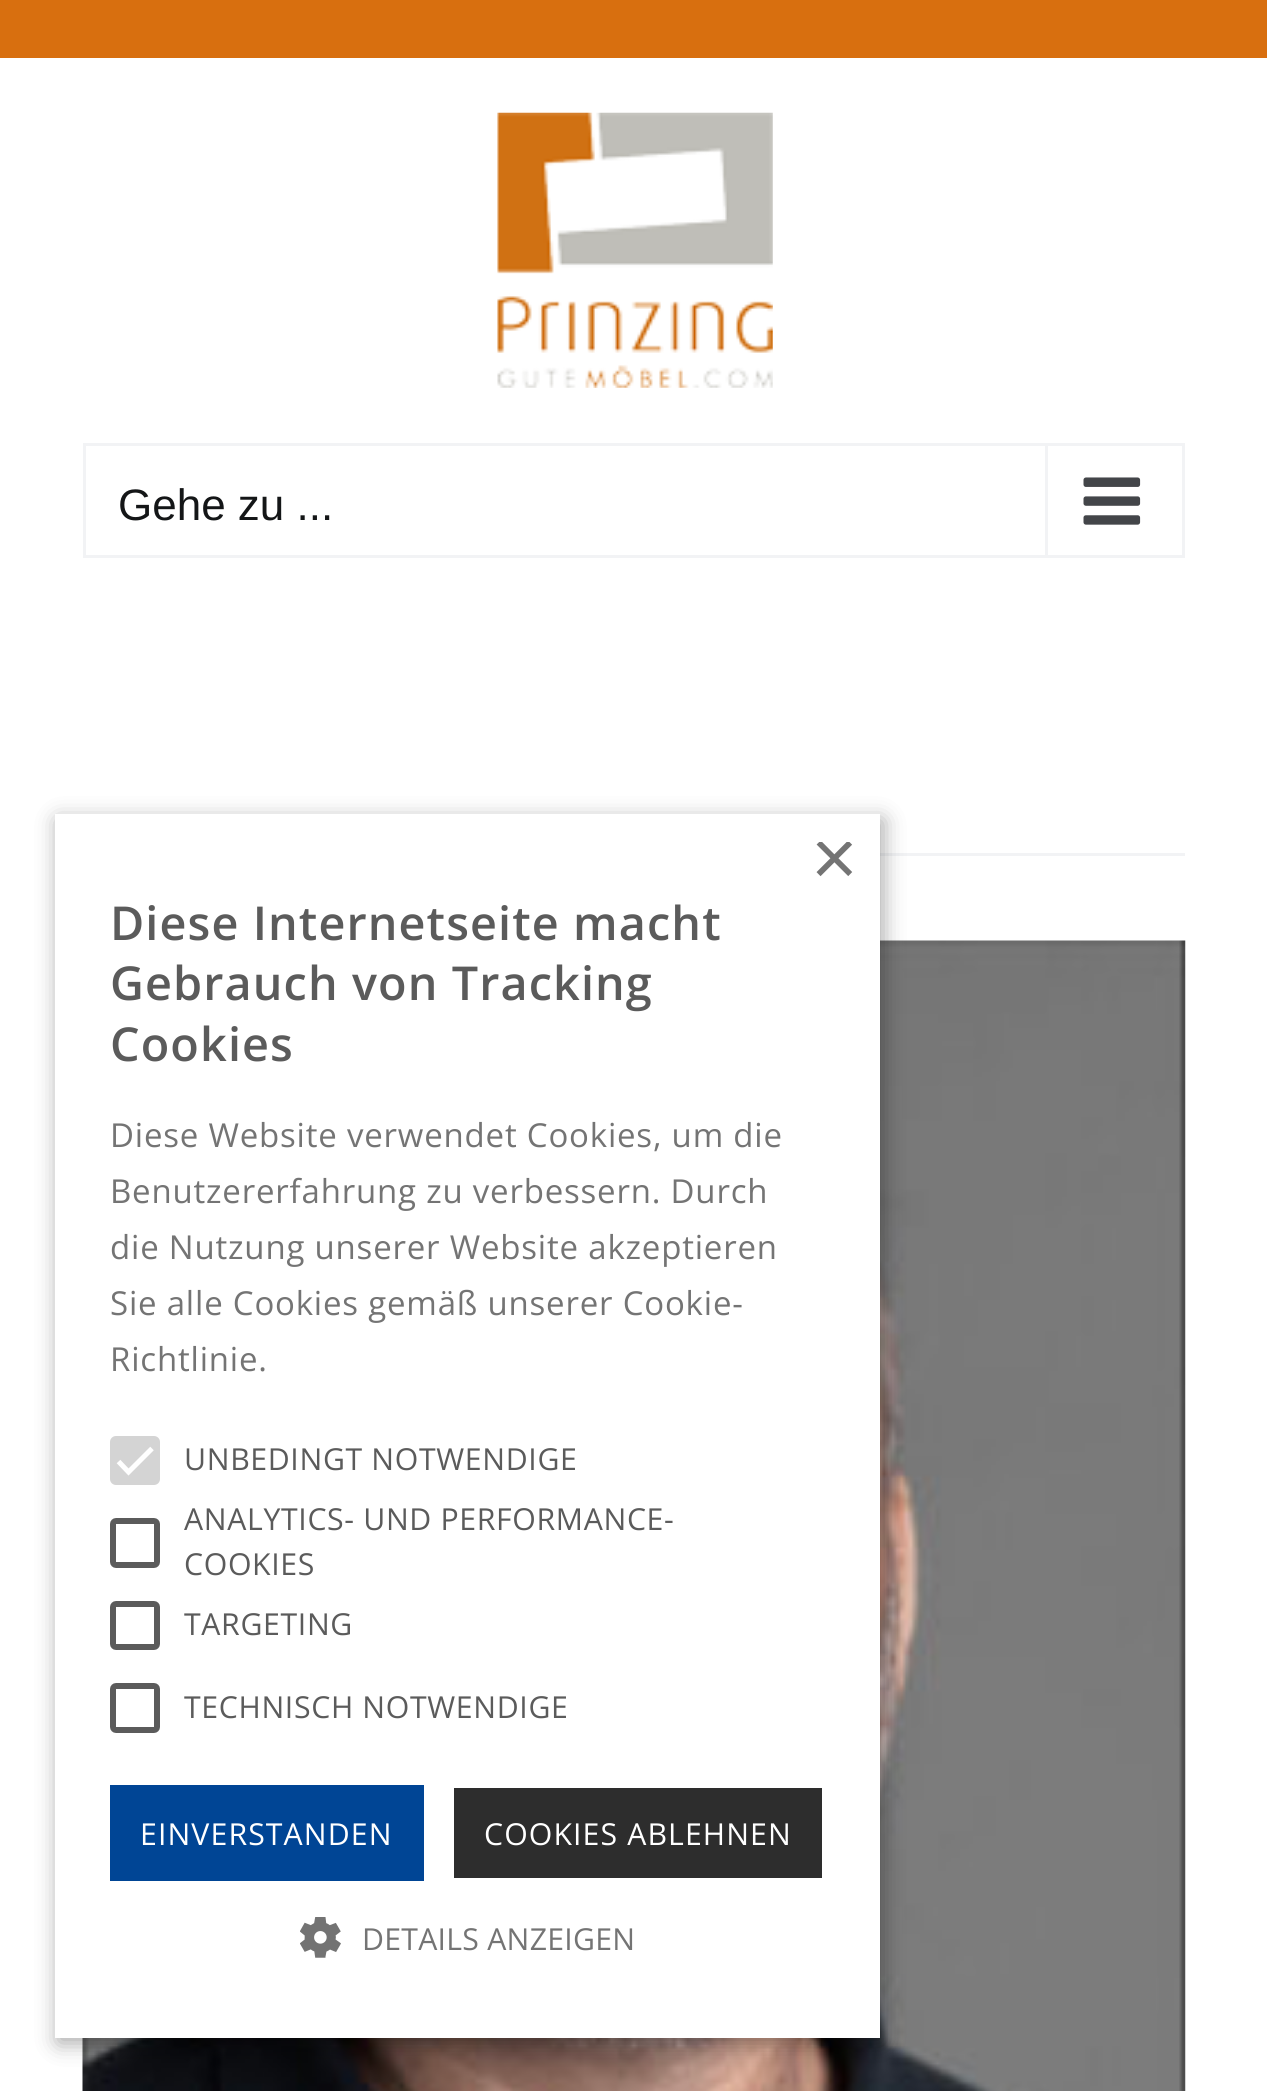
import math
import cairo

surface = cairo.ImageSurface(cairo.FORMAT_RGB24, 1267, 2091)
c = cairo.Context(surface)
options = cairo.FontOptions()
options.set_hint_metrics(cairo.HINT_METRICS_OFF)
options.set_hint_style(cairo.HINT_STYLE_NONE)
c.set_font_options(options)
c.set_miter_limit(4)
def C(code):
 c.set_source_rgb(*(v / 255 for v in bytes.fromhex(code[-6:])))
def F(family, size, italic, bold):
 c.select_font_face(family, cairo.FONT_SLANT_ITALIC if italic else cairo.FONT_SLANT_NORMAL, cairo.FONT_WEIGHT_BOLD if bold else cairo.FONT_WEIGHT_NORMAL)
 c.set_font_size(size)
def T(x, y, s):
 c.move_to(x, y)
 c.show_text(s)
def L(x, y, s, letter, word):
 c.move_to(x, y)
 for ch in s:
  c.show_text(ch)
  c.rel_move_to(letter + word * (ch == ' '), 0)
def R(x, y, w, h):
 c.rectangle(x, y, w, h)
 c.fill()
def Q(x, y, w, h, r):
 c.new_sub_path()
 for i, (u, v) in enumerate([(x + w - r, y + h - r), (x + r, y + h - r), (x + r, y + r), (x + w - r, y + r)]):
  c.arc(u, v, r, i * math.pi / 2, (i + 1) * math.pi / 2)
 c.close_path()
def S(x, y, w, h, r, blur, alpha):
 c.push_group_with_content(cairo.CONTENT_ALPHA)
 c.set_operator(cairo.OPERATOR_SOURCE)
 for i in range(15, -16, -2):
  e = blur * i / 6
  if min(w, h) + 2 * e > 0:
   c.set_source_rgba(0, 0, 0, alpha * math.erfc((i - 1) / 8.5) / 2)
   Q(x - e, y - e, w + 2 * e, h + 2 * e, max(0, min(r + e + blur * .6, min(w, h) / 2 + e)))
   c.fill()
 c.mask(c.pop_group())
def I(path, x, y, w, h):
 c.save()
 c.set_source_surface(cairo.ImageSurface.create_from_png(path), x, y)
 c.rectangle(x, y, w, h)
 c.fill()
 c.restore()
C('ffffff')
c.paint()
C('d86f0f')
R(0,0,1267,58)
I('1.png',497,112,276,276)
c.rectangle(84.5,444.5,1099,112)
C('f2f3f5')
c.set_line_width(3)
c.stroke()
F('Liberation Sans',44,0,0)
C('141617')
T(118,520,'Gehe zu ...')
C('f2f3f5')
R(1045,446,3,110)
I('2.png',1083,477,58,48)
R(880,853,305,3)
I('3.png',82,940,1104,1151)
C('000000')
S(58,820,825,1223,0,11,.35)
C('ffffff')
R(55,814,825,1224)
c.save()
c.rectangle(811,842,42,41)
c.clip()
F('Liberation Sans',80,0,0)
C('747474')
T(811,885,'×')
c.restore()
F('Open Sans SemiBold',46.75,0,0)
C('5b5b5b')
L(110,940,'Diese Internetseite macht',1.1,0)
L(110,1000,'Gebrauch von Tracking',1.1,0)
L(110,1061,'Cookies',1.1,0)
F('Open Sans',33,0,0)
C('747474')
L(110,1147,'Diese Website verwendet Cookies, um die',.8,0)
L(110,1203,'Benutzererfahrung zu verbessern. Durch',.8,0)
L(110,1259,'die Nutzung unserer Website akzeptieren',.8,0)
L(110,1315,'Sie alle Cookies gemäß unserer Cookie-',.8,0)
L(110,1371,'Richtlinie.',.8,0)
C('d4d4d4')
Q(110,1436,50,49,6)
c.fill()
c.new_path()
c.move_to(118.5,1461.5)
c.line_to(128.5,1472)
c.line_to(152,1448.5)
C('ffffff')
c.set_line_width(5)
c.stroke()
F('Open Sans',30.25,0,0)
C('5b5b5b')
L(184,1470,'UNBEDINGT NOTWENDIGE',.65,0)
Q(113,1521,44,44,3)
c.set_line_width(6)
c.stroke()
L(184,1530,'ANALYTICS- UND PERFORMANCE-',.65,0)
L(184,1575,'COOKIES',.65,0)
Q(113,1604,44,43,3)
c.stroke()
L(184,1635,'TARGETING',.65,0)
Q(113,1686,44,44,3)
c.stroke()
L(184,1718,'TECHNISCH NOTWENDIGE',.65,0)
C('004595')
R(110,1785,314,96)
C('ffffff')
L(140,1845,'EINVERSTANDEN',1.1,0)
C('2d2d2d')
R(454,1788,368,90)
C('ffffff')
L(484,1845,'COOKIES ABLEHNEN',1.1,0)
I('4.png',300,1917,41,41)
C('747474')
L(362,1950,'DETAILS ANZEIGEN',.25,0)
surface.write_to_png('o.png')
